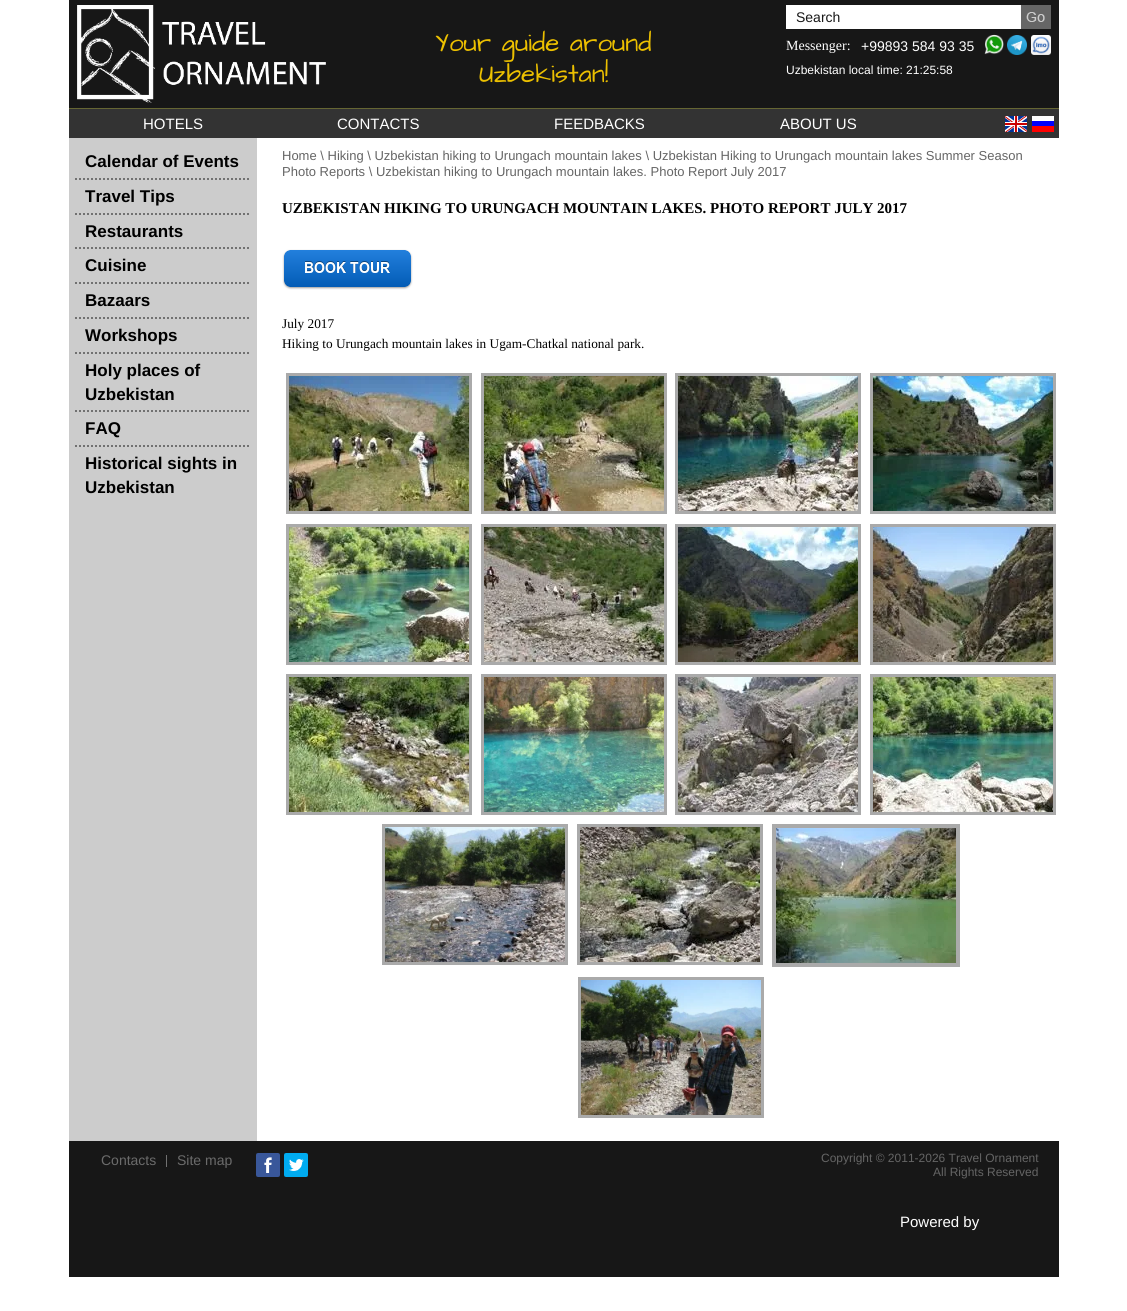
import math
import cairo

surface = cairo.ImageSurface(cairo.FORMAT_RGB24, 1127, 1311)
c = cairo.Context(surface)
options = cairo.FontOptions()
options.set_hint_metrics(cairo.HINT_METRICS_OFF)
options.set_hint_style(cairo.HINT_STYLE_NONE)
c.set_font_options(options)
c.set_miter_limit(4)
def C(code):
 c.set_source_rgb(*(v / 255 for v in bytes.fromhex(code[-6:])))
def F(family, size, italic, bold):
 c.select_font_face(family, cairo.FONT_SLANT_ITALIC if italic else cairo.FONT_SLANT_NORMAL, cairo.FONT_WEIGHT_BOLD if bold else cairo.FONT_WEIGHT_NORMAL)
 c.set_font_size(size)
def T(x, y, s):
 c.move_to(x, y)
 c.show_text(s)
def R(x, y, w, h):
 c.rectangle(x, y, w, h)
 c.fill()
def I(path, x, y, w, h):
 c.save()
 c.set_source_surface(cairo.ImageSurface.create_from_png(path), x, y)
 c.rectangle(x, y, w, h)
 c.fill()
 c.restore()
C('ffffff')
c.paint()
C('171717')
R(69,0,990,108)
I('1.png',77,5,249,98)
F('Architects Daughter',26,0,0)
C('ecc000')
T(435,51,'Your guide around')
T(479,82,'Uzbekistan!')
C('ffffff')
R(786,5,235,24)
F('Liberation Sans',14,0,0)
C('171717')
T(796,22,'Search')
C('666666')
R(1021,5,30,24)
I('2.png',1026,12,19,10)
F('Liberation Serif',14,0,0)
C('ffffff')
T(786,50,'Messenger:')
F('Liberation Sans',14,0,0)
T(861,51,'+99893 584 93 35')
I('3.png',984,34,20,21)
I('4.png',1007,35,20,20)
I('5.png',1031,35,20,20)
F('Liberation Sans',12,0,0)
T(786,74,'Uzbekistan local time: 21:25:58')
C('333333')
R(69,109,990,29)
C('666633')
R(69,108,990,1)
F('Liberation Sans',15,0,0)
C('ffffff')
T(143,129,'HOTELS')
T(337,129,'CONTACTS')
T(554,129,'FEEDBACKS')
T(780,129,'ABOUT US')
I('6.png',1005,116,22,16)
I('7.png',1032,116,22,16)
C('cccccc')
R(69,138,188,1003)
F('Liberation Sans',17,0,1)
C('000000')
T(85,167,'Calendar of Events')
c.new_path()
c.move_to(75,179)
c.line_to(250,179)
C('717171')
c.set_dash([2,2])
c.stroke()
C('000000')
T(85,202,'Travel Tips')
c.new_path()
c.move_to(75,214)
c.line_to(250,214)
C('717171')
c.stroke()
C('000000')
T(85,237,'Restaurants')
c.new_path()
c.move_to(75,248)
c.line_to(250,248)
C('717171')
c.stroke()
C('000000')
T(85,271,'Cuisine')
c.new_path()
c.move_to(75,283)
c.line_to(250,283)
C('717171')
c.stroke()
C('000000')
T(85,306,'Bazaars')
c.new_path()
c.move_to(75,318)
c.line_to(250,318)
C('717171')
c.stroke()
C('000000')
T(85,341,'Workshops')
c.new_path()
c.move_to(75,353)
c.line_to(250,353)
C('717171')
c.stroke()
C('000000')
T(85,376,'Holy places of')
T(85,400,'Uzbekistan')
c.new_path()
c.move_to(75,411)
c.line_to(250,411)
C('717171')
c.stroke()
C('000000')
T(85,434,'FAQ')
c.new_path()
c.move_to(75,446)
c.line_to(250,446)
C('717171')
c.stroke()
C('000000')
T(85,469,'Historical sights in')
T(85,493,'Uzbekistan')
F('Liberation Sans',13,0,0)
C('656565')
T(282,160,'Home \\ Hiking \\ Uzbekistan hiking to Urungach mountain lakes \\ Uzbekistan Hiking to Urungach mountain lakes Summer Season')
T(282,176,'Photo Reports \\ Uzbekistan hiking to Urungach mountain lakes. Photo Report July 2017')
F('Liberation Serif',15,0,1)
C('000000')
T(282,213,'UZBEKISTAN HIKING TO URUNGACH MOUNTAIN LAKES. PHOTO REPORT JULY 2017')
I('8.png',282,249,131,41)
F('Liberation Serif',13.3,0,0)
T(282,328,'July 2017')
T(282,348,'Hiking to Urungach mountain lakes in Ugam-Chatkal national park.')
c.rectangle(287.5,374.5,183,138)
C('aaaaaa')
c.set_line_width(3)
c.set_dash([])
c.stroke()
I('9.png',289,376,180,135)
c.rectangle(482.5,374.5,183,138)
c.stroke()
I('10.png',484,376,180,135)
c.rectangle(676.5,374.5,183,138)
c.stroke()
I('11.png',678,376,180,135)
c.rectangle(871.5,374.5,183,138)
c.stroke()
I('12.png',873,376,180,135)
c.rectangle(287.5,525.5,183,138)
c.stroke()
I('13.png',289,527,180,135)
c.rectangle(482.5,525.5,183,138)
c.stroke()
I('14.png',484,527,180,135)
c.rectangle(676.5,525.5,183,138)
c.stroke()
I('15.png',678,527,180,135)
c.rectangle(871.5,525.5,183,138)
c.stroke()
I('16.png',873,527,180,135)
c.rectangle(287.5,675.5,183,138)
c.stroke()
I('17.png',289,677,180,135)
c.rectangle(482.5,675.5,183,138)
c.stroke()
I('18.png',484,677,180,135)
c.rectangle(676.5,675.5,183,138)
c.stroke()
I('19.png',678,677,180,135)
c.rectangle(871.5,675.5,183,138)
c.stroke()
I('20.png',873,677,180,135)
c.rectangle(383.5,825.5,183,138)
c.stroke()
I('21.png',385,827,180,135)
c.rectangle(578.5,825.5,183,138)
c.stroke()
I('22.png',580,827,180,135)
c.rectangle(774,826,184,139)
c.set_line_width(4)
c.stroke()
I('23.png',776,828,180,135)
c.rectangle(579.5,978.5,183,138)
c.set_line_width(3)
c.stroke()
I('24.png',581,980,180,135)
C('171717')
R(69,1141,990,136)
F('Liberation Sans',14,0,0)
C('6b6b6b')
T(101,1165,'Contacts')
C('717171')
R(166,1155,1,12)
C('6b6b6b')
T(177,1165,'Site map')
I('25.png',256,1153,24,24)
I('26.png',284,1153,24,24)
F('Liberation Sans',12,0,0)
C('656565')
T(821,1162,'Copyright © 2011-2026 Travel Ornament')
T(933,1176,'All Rights Reserved')
F('Liberation Sans',15,0,0)
C('ffffff')
T(900,1227,'Powered by')
surface.write_to_png('o.png')
